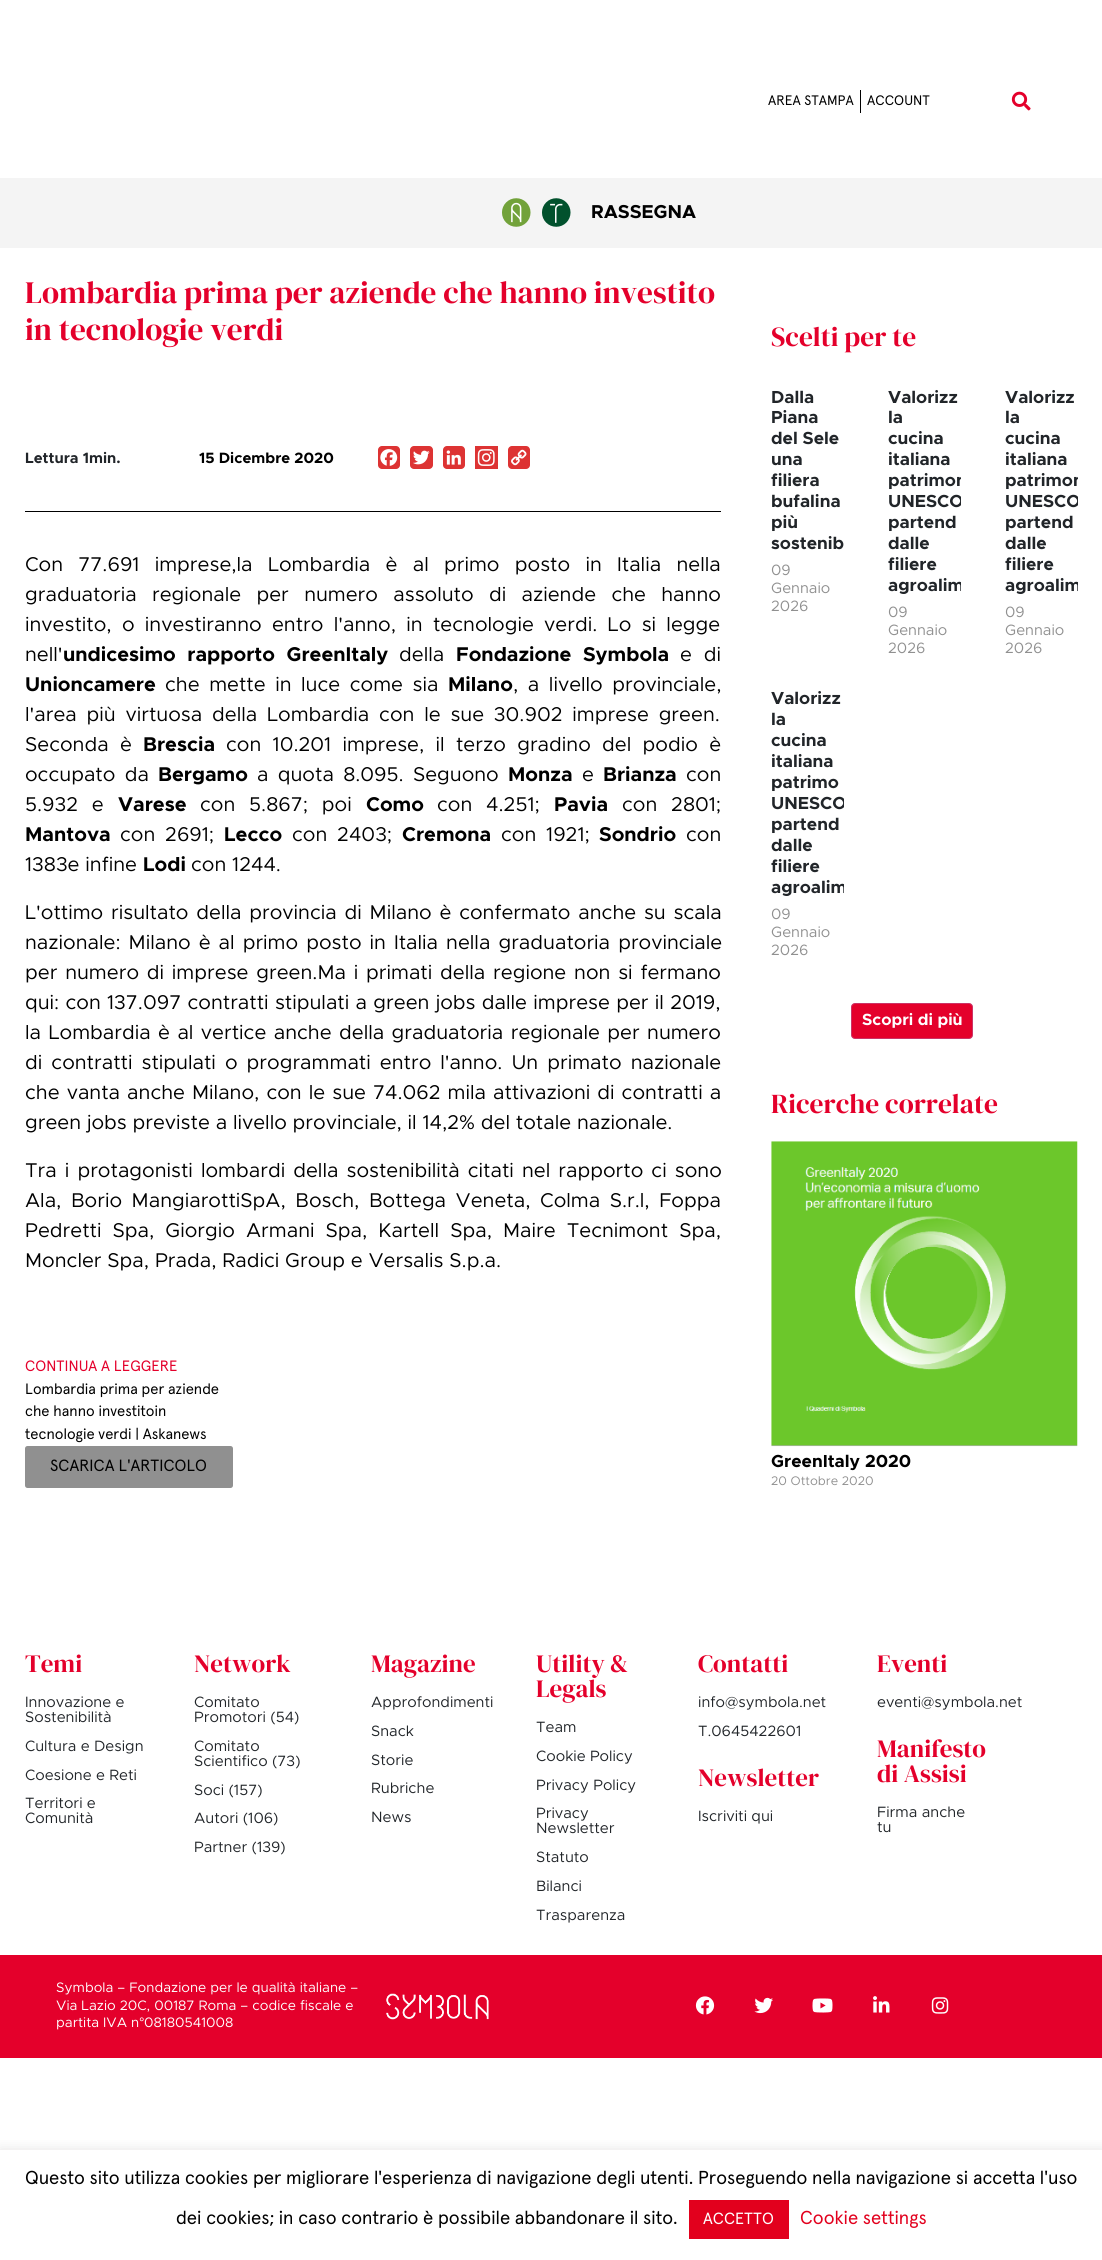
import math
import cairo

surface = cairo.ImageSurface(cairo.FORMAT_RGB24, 1102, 2260)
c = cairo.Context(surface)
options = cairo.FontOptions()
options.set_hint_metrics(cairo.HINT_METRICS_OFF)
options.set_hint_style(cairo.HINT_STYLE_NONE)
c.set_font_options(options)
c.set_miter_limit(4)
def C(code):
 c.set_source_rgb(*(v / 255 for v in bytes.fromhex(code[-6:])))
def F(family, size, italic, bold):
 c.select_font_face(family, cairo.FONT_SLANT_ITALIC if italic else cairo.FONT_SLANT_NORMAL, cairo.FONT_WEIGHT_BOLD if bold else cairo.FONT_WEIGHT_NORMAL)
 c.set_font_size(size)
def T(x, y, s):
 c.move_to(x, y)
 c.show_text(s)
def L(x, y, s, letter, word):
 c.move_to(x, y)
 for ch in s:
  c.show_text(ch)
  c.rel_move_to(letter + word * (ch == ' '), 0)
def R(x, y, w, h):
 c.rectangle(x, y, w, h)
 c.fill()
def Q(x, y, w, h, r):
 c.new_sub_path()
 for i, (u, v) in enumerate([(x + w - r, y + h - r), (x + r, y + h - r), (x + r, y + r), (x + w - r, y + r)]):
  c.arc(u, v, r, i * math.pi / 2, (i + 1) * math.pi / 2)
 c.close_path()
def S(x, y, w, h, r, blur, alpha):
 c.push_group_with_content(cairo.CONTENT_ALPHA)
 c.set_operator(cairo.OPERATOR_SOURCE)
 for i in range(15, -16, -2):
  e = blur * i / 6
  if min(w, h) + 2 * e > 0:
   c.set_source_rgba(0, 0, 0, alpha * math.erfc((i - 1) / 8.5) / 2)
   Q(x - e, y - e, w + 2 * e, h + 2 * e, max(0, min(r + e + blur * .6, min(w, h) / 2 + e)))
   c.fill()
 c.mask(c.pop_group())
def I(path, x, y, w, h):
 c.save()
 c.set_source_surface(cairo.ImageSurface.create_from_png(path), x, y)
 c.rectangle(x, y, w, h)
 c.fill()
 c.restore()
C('ffffff')
c.paint()
F('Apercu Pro',13.75,0,0)
C('000000')
T(768,105,'AREA STAMPA')
R(860,90,1,23)
T(867,105,'ACCOUNT')
I('1.png',1011,91,20,20)
C('f4f4f4')
R(0,178,1102,70)
I('2.png',502,198,29,29)
I('3.png',542,198,29,29)
F('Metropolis',18.75,0,1)
C('000000')
T(591,218,'RASSEGNA')
F('DM Serif Display',31.25,0,0)
C('e4002b')
T(25,303,'Lombardia prima per aziende che hanno investito')
T(25,340,'in tecnologie verdi')
F('Metropolis',15,0,1)
C('212529')
T(25,463,'Lettura 1min.')
C('000000')
T(199,463,'15 Dicembre 2020')
C('dd3333')
Q(378,446,22,23,4)
c.fill()
I('4.png',380,449,18,17)
Q(410,446,23,23,4)
c.fill()
I('5.png',413,450,17,15)
Q(443,446,22,23,4)
c.fill()
I('6.png',446,450,15,15)
R(475,446,23,23)
I('7.png',477,449,18,17)
Q(508,446,22,23,4)
c.fill()
I('8.png',511,449,16,17)
C('000000')
R(25,511,696,1)
F('Metropolis',20,0,0)
L(25,571,'Con 77.691 imprese,la Lombardia è al primo posto in Italia nella',0,9.5)
L(25,601,'graduatoria regionale per numero assoluto di aziende che hanno',0,9.5)
L(25,631,'investito, o investiranno entro l\'anno, in tecnologie verdi. Lo si legge',0,4.5)
T(25,661,'nell\'')
F('Metropolis',20,0,1)
L(63,661,'undicesimo rapporto GreenItaly',0,6)
F('Metropolis',20,0,0)
T(399,661,'della')
F('Metropolis',20,0,1)
L(456,661,'Fondazione Symbola',0,6)
F('Metropolis',20,0,0)
L(680,661,'e di',0,6)
F('Metropolis',20,0,1)
T(25,691,'Unioncamere')
F('Metropolis',20,0,0)
L(165,691,'che mette in luce come sia',0,3.75)
F('Metropolis',20,0,1)
T(448,691,'Milano')
F('Metropolis',20,0,0)
L(513,691,', a livello provinciale,',0,3.75)
L(25,721,'l\'area più virtuosa della Lombardia con le sue 30.902 imprese green.',0,4)
L(25,751,'Seconda è',0,5.5)
F('Metropolis',20,0,1)
T(143,751,'Brescia')
F('Metropolis',20,0,0)
L(226,751,'con 10.201 imprese, il terzo gradino del podio è',0,5.5)
L(25,781,'occupato da',0,3.5)
F('Metropolis',20,0,1)
T(158,781,'Bergamo')
F('Metropolis',20,0,0)
L(257,781,'a quota 8.095. Seguono',0,3.5)
F('Metropolis',20,0,1)
T(508,781,'Monza')
F('Metropolis',20,0,0)
T(582,781,'e')
F('Metropolis',20,0,1)
T(603,781,'Brianza')
F('Metropolis',20,0,0)
T(686,781,'con')
L(25,811,'5.932 e',0,8)
F('Metropolis',20,0,1)
T(118,811,'Varese')
F('Metropolis',20,0,0)
L(200,811,'con 5.867; poi',0,8)
F('Metropolis',20,0,1)
T(366,811,'Como')
F('Metropolis',20,0,0)
L(437,811,'con 4.251;',0,8)
F('Metropolis',20,0,1)
T(554,811,'Pavia')
F('Metropolis',20,0,0)
L(622,811,'con 2801;',0,8)
F('Metropolis',20,0,1)
T(25,841,'Mantova')
F('Metropolis',20,0,0)
L(120,841,'con 2691;',0,4)
F('Metropolis',20,0,1)
T(224,841,'Lecco')
F('Metropolis',20,0,0)
L(292,841,'con 2403;',0,4)
F('Metropolis',20,0,1)
T(402,841,'Cremona')
F('Metropolis',20,0,0)
L(501,841,'con 1921;',0,4)
F('Metropolis',20,0,1)
T(599,841,'Sondrio')
F('Metropolis',20,0,0)
T(686,841,'con')
T(25,871,'1383e infine')
F('Metropolis',20,0,1)
T(143,871,'Lodi')
F('Metropolis',20,0,0)
T(191,871,'con 1244.')
L(25,919,'L\'ottimo risultato della provincia di Milano è confermato anche su scala',0,2)
L(25,949,'nazionale: Milano è al primo posto in Italia nella graduatoria provinciale',0,2.25)
L(25,979,'per numero di imprese green.Ma i primati della regione non si fermano',0,2)
L(25,1009,'qui: con 137.097 contratti stipulati a green jobs dalle imprese per il 2019,',0,.5)
L(25,1039,'la Lombardia è al vertice anche della graduatoria regionale per numero',0,1.6)
L(25,1069,'di contratti stipulati o programmati entro l\'anno. Un primato nazionale',0,3.25)
L(25,1099,'che vanta anche Milano, con le sue 74.062 mila attivazioni di contratti a',0,1.25)
T(25,1129,'green jobs previste a livello provinciale, il 14,2% del totale nazionale.')
L(25,1177,'Tra i protagonisti lombardi della sostenibilità citati nel rapporto ci sono',0,2.25)
L(25,1207,'Ala, Borio MangiarottiSpA, Bosch, Bottega Veneta, Colma S.r.l, Foppa',0,3.75)
L(25,1237,'Pedretti Spa, Giorgio Armani Spa, Kartell Spa, Maire Tecnimont Spa,',0,5.25)
T(25,1267,'Moncler Spa, Prada, Radici Group e Versalis S.p.a.')
F('Apercu Pro',15,0,0)
C('e4002b')
T(25,1371,'CONTINUA A LEGGERE')
C('000000')
T(25,1394,'Lombardia prima per aziende')
T(25,1416,'che hanno investitoin')
T(25,1439,'tecnologie verdi | Askanews')
C('909090')
Q(25,1446,208,42,2.5)
c.fill()
F('Apercu Pro',16.25,0,0)
C('000000')
T(50,1471,'SCARICA L\'ARTICOLO')
F('DM Serif Display',27.5,0,0)
C('e4002b')
T(771,346,'Scelti per te')
F('Metropolis',17.5,0,1)
C('212529')
T(771,403,'Dalla')
T(771,423,'Piana')
T(771,444,'del Sele')
T(771,465,'una')
T(771,486,'filiera')
T(771,507,'bufalina')
T(771,528,'più')
T(771,549,'sostenib')
F('Metropolis',15,0,0)
C('909090')
T(771,575,'09')
T(771,593,'Gennaio')
T(771,611,'2026')
F('Metropolis',17.5,0,1)
C('212529')
T(888,403,'Valorizz')
T(888,423,'la')
T(888,444,'cucina')
T(888,465,'italiana')
c.save()
c.rectangle(863,375,98,283)
c.clip()
T(888,486,'patrimon')
T(888,507,'UNESCO')
c.restore()
T(888,528,'partend')
T(888,549,'dalle')
T(888,570,'filiere')
c.save()
c.rectangle(863,375,98,283)
c.clip()
T(888,591,'agroalim')
c.restore()
F('Metropolis',15,0,0)
C('909090')
T(888,617,'09')
T(888,635,'Gennaio')
T(888,653,'2026')
F('Metropolis',17.5,0,1)
C('212529')
T(1005,403,'Valorizz')
T(1005,423,'la')
T(1005,444,'cucina')
T(1005,465,'italiana')
c.save()
c.rectangle(980,375,98,283)
c.clip()
T(1005,486,'patrimon')
T(1005,507,'UNESCO')
c.restore()
T(1005,528,'partend')
T(1005,549,'dalle')
T(1005,570,'filiere')
c.save()
c.rectangle(980,375,98,283)
c.clip()
T(1005,591,'agroalim')
c.restore()
F('Metropolis',15,0,0)
C('909090')
T(1005,617,'09')
T(1005,635,'Gennaio')
T(1005,653,'2026')
F('Metropolis',17.5,0,1)
C('212529')
T(771,704,'Valorizz')
T(771,725,'la')
T(771,746,'cucina')
T(771,767,'italiana')
T(771,788,'patrimo')
c.save()
c.rectangle(746,676,98,283)
c.clip()
T(771,809,'UNESCO')
c.restore()
T(771,830,'partend')
T(771,851,'dalle')
T(771,872,'filiere')
c.save()
c.rectangle(746,676,98,283)
c.clip()
T(771,893,'agroalim')
c.restore()
F('Metropolis',15,0,0)
C('909090')
T(771,919,'09')
T(771,937,'Gennaio')
T(771,955,'2026')
C('e4002b')
Q(851.5,1003.5,121,35,3.5)
c.fill_preserve()
C('cc3366')
c.set_line_width(1)
c.stroke()
F('Metropolis',16.25,0,1)
C('ffffff')
T(862,1025,'Scopri di più')
F('DM Serif Display',27.5,0,0)
C('e4002b')
T(771,1113,'Ricerche correlate')
I('9.png',771,1141,307,306)
F('Metropolis',17.5,0,1)
C('000000')
T(771,1467,'GreenItaly 2020')
F('Metropolis',12.5,0,0)
C('909090')
T(771,1485,'20 Ottobre 2020')
F('DM Serif Display',25,0,0)
C('e4002b')
T(25,1672,'Temi')
F('Metropolis',15,0,0)
C('212529')
T(25,1707,'Innovazione e')
T(25,1722,'Sostenibilità')
T(25,1751,'Cultura e Design')
T(25,1780,'Coesione e Reti')
T(25,1808,'Territori e')
T(25,1823,'Comunità')
F('DM Serif Display',25,0,0)
C('e4002b')
T(194,1672,'Network')
F('Metropolis',15,0,0)
C('212529')
T(194,1707,'Comitato')
T(194,1722,'Promotori (54)')
T(194,1751,'Comitato')
T(194,1766,'Scientifico (73)')
T(194,1795,'Soci (157)')
T(194,1823,'Autori (106)')
T(194,1852,'Partner (139)')
F('DM Serif Display',25,0,0)
C('e4002b')
T(371,1672,'Magazine')
F('Metropolis',15,0,0)
C('212529')
T(371,1707,'Approfondimenti')
T(371,1736,'Snack')
T(371,1765,'Storie')
T(371,1793,'Rubriche')
T(371,1822,'News')
F('DM Serif Display',25,0,0)
C('e4002b')
T(536,1672,'Utility &')
T(536,1697,'Legals')
F('Metropolis',15,0,0)
C('212529')
T(536,1732,'Team')
T(536,1761,'Cookie Policy')
T(536,1790,'Privacy Policy')
T(536,1818,'Privacy')
T(536,1833,'Newsletter')
T(536,1862,'Statuto')
T(536,1891,'Bilanci')
T(536,1920,'Trasparenza')
F('DM Serif Display',25,0,0)
C('e4002b')
T(698,1672,'Contatti')
F('Metropolis',15,0,0)
C('212529')
T(698,1707,'info@symbola.net')
T(698,1736,'T.0645422601')
F('DM Serif Display',25,0,0)
C('e4002b')
T(698,1786,'Newsletter')
F('Metropolis',15,0,0)
C('212529')
T(698,1821,'Iscriviti qui')
F('DM Serif Display',25,0,0)
C('e4002b')
T(877,1672,'Eventi')
F('Metropolis',15,0,0)
C('212529')
T(877,1707,'eventi@symbola.net')
F('DM Serif Display',25,0,0)
C('e4002b')
T(877,1757,'Manifesto')
T(877,1782,'di Assisi')
F('Metropolis',15,0,0)
C('212529')
T(877,1817,'Firma anche')
T(877,1832,'tu')
C('e4002b')
R(0,1955,1102,103)
F('Metropolis',13.75,0,0)
C('ffffff')
T(56,1992,'Symbola – Fondazione per le qualità italiane –')
T(56,2010,'Via Lazio 20C, 00187 Roma – codice fiscale e')
T(56,2027,'partita IVA n')
F('Liberation Sans',13.75,0,0)
T(139,2027,'°')
F('Metropolis',13.75,0,0)
T(144,2027,'08180541008')
I('10.png',386,1993,103,27)
I('11.png',695,1996,20,19)
I('12.png',754,1997,19,17)
I('13.png',812,1998,21,15)
I('14.png',873,1996,17,17)
I('15.png',931,1997,18,17)
c.save()
c.rectangle(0,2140,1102,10)
c.clip()
C('acabab')
S(0,2149,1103,110,0,6,.3)
c.restore()
F('Apercu Pro',18.75,0,0)
C('000000')
T(25,2184,'Questo sito utilizza cookies per migliorare l\'esperienza di navigazione degli utenti. Proseguendo nella navigazione si accetta l\'uso')
T(176,2224,'dei cookies; in caso contrario è possibile abbandonare il sito.')
C('e2001d')
R(689,2200,100,39)
F('Apercu Pro',16.25,0,0)
C('ffffff')
T(703,2224,'ACCETTO')
F('Apercu Pro',18.75,0,0)
C('e2001d')
T(800,2224,'Cookie settings')
surface.write_to_png('o.png')
